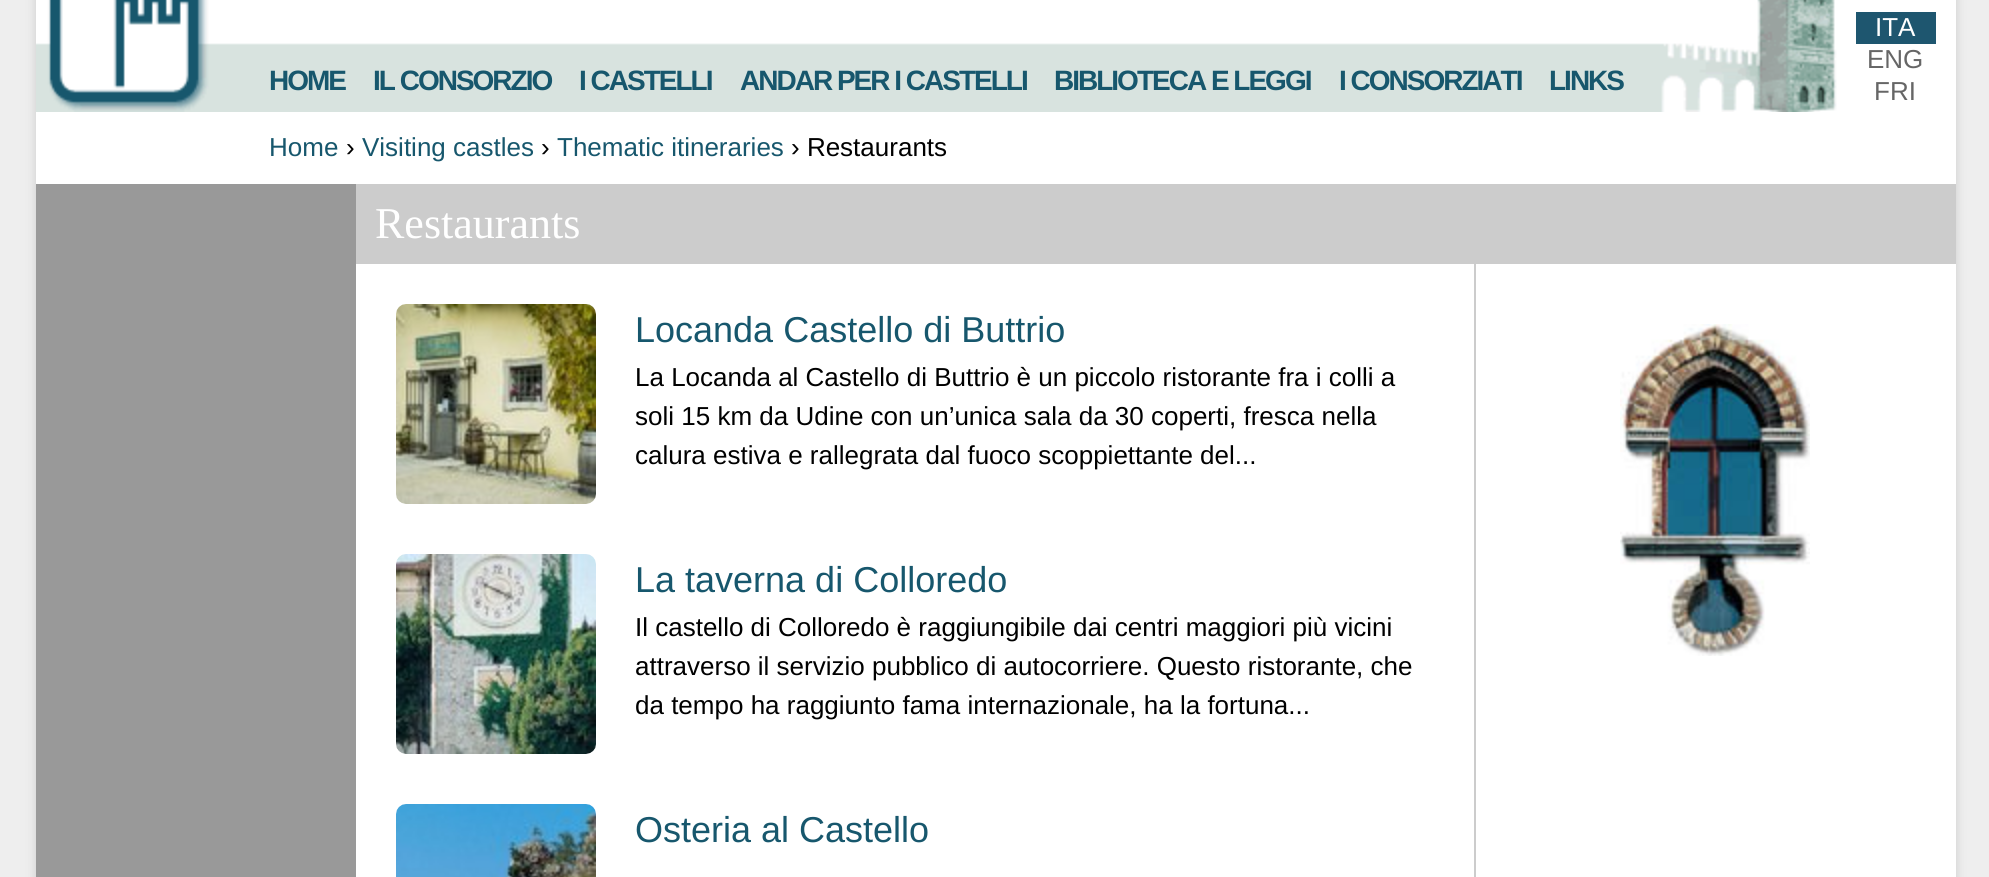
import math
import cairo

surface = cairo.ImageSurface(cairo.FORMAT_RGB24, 1989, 877)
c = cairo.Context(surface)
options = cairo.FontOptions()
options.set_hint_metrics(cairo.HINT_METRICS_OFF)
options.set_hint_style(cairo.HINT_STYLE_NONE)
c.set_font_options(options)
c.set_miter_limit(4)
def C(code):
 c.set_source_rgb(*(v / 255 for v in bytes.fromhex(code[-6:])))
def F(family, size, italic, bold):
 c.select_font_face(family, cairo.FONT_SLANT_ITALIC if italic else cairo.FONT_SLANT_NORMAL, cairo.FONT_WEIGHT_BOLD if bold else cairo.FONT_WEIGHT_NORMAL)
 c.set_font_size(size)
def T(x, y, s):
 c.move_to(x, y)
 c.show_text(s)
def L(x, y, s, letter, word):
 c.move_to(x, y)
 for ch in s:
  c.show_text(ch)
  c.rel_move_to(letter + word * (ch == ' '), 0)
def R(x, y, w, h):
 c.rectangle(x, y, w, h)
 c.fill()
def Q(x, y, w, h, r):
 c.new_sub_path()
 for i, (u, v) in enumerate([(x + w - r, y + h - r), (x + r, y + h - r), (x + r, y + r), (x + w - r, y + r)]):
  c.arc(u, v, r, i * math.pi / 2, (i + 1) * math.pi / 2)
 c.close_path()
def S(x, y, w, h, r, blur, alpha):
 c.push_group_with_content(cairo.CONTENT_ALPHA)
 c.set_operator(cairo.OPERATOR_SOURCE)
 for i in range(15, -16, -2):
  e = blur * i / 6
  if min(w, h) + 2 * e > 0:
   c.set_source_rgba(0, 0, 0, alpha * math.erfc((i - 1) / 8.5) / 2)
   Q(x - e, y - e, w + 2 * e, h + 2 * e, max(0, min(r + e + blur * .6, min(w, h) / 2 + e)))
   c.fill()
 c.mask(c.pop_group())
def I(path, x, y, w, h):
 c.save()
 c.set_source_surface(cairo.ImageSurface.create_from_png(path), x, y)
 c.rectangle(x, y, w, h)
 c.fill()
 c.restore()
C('eeeeee')
c.paint()
C('cccccc')
S(36,-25,1920,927,10,5,1)
C('ffffff')
R(36,0,1920,877)
I('1.png',36,0,1801,112)
F('Liberation Sans',28,0,1)
C('17576d')
L(269,90,'HOME',-2,0)
L(373,90,'IL CONSORZIO',-2,0)
L(579,90,'I CASTELLI',-2,0)
L(740,90,'ANDAR PER I CASTELLI',-2,0)
L(1054,90,'BIBLIOTECA E LEGGI',-2,0)
L(1339,90,'I CONSORZIATI',-2,0)
L(1549,90,'LINKS',-2,0)
C('1e566f')
R(1856,12,80,32)
F('Liberation Sans',26,0,0)
C('ffffff')
T(1875,36,'ITA')
C('666666')
T(1867,68,'ENG')
T(1874,100,'FRI')
C('17576d')
T(269,156,'Home')
C('000000')
T(346,156,'›')
C('17576d')
T(362,156,'Visiting castles')
C('000000')
T(541,156,'›')
C('17576d')
T(557,156,'Thematic itineraries')
C('000000')
T(791,156,'› Restaurants')
C('999999')
R(36,184,320,693)
C('cccccc')
R(356,184,1600,80)
F('Liberation Serif',44,0,0)
C('ffffff')
T(375,238,'Restaurants')
C('cccccc')
R(1474,264,2,613)
I('2.png',396,304,200,200)
F('Liberation Sans',36,0,0)
C('17576d')
T(635,342,'Locanda Castello di Buttrio')
F('Liberation Sans',26,0,0)
C('000000')
T(635,386,'La Locanda al Castello di Buttrio è un piccolo ristorante fra i colli a')
T(635,425,'soli 15 km da Udine con un’unica sala da 30 coperti, fresca nella')
T(635,464,'calura estiva e rallegrata dal fuoco scoppiettante del...')
I('3.png',396,554,200,200)
F('Liberation Sans',36,0,0)
C('17576d')
T(635,592,'La taverna di Colloredo')
F('Liberation Sans',26,0,0)
C('000000')
T(635,636,'Il castello di Colloredo è raggiungibile dai centri maggiori più vicini')
T(635,675,'attraverso il servizio pubblico di autocorriere. Questo ristorante, che')
T(635,714,'da tempo ha raggiunto fama internazionale, ha la fortuna...')
I('4.png',396,804,200,73)
F('Liberation Sans',36,0,0)
C('17576d')
T(635,842,'Osteria al Castello')
I('5.png',1620,324,190,332)
surface.write_to_png('o.png')
